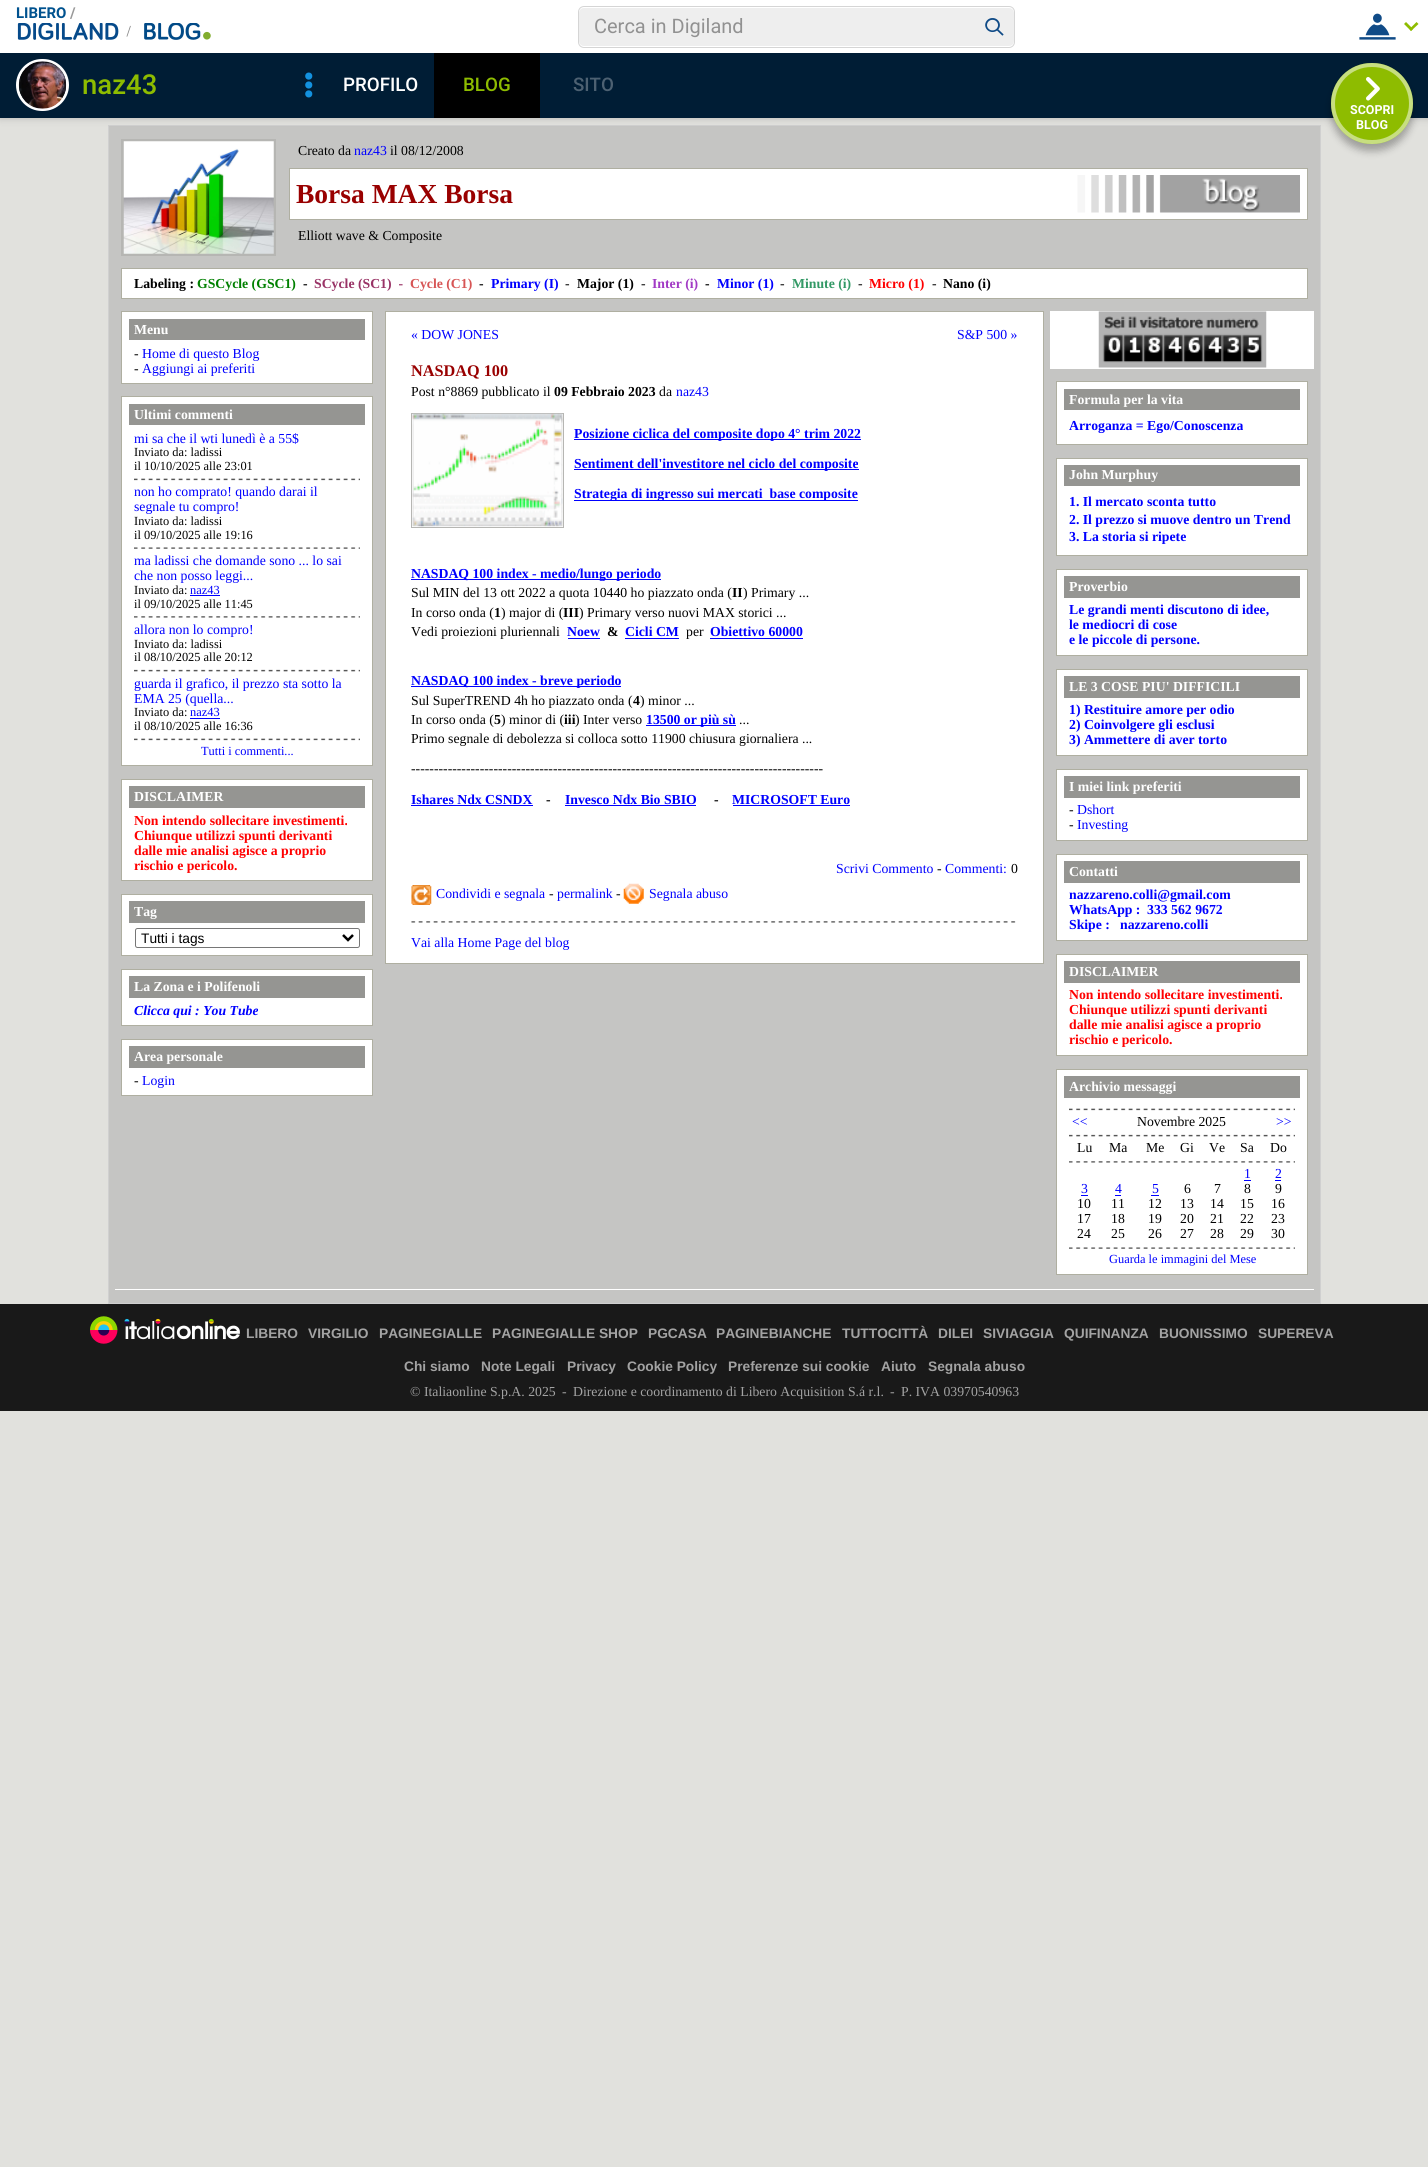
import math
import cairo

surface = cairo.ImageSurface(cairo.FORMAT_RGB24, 1428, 2167)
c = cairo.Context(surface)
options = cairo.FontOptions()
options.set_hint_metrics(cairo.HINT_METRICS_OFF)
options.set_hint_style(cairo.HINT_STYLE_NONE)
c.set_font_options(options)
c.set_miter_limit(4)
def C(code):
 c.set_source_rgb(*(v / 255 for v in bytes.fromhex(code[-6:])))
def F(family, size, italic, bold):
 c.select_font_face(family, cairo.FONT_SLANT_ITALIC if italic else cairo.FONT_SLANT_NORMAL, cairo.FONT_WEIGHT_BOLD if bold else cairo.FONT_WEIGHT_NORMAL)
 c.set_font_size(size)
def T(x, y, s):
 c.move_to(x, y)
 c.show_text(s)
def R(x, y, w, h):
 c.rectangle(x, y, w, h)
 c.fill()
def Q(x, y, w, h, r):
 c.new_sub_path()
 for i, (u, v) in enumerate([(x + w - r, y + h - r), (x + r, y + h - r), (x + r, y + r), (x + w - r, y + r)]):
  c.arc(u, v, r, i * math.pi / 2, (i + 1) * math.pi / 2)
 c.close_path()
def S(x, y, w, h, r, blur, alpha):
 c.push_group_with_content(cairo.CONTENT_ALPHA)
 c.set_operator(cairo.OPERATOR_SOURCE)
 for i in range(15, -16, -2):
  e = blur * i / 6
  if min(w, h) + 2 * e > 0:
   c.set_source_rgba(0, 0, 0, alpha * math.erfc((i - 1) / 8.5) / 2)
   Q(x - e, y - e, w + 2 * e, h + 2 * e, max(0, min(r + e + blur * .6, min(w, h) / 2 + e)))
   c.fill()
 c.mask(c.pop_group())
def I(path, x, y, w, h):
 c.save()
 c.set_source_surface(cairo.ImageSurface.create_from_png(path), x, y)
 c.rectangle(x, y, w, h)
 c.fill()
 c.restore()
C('e1e1dd')
c.paint()
C('c5c5c3')
c.rectangle(108.5,125.5,1212,1178)
c.fill_preserve()
C('d0d0d0')
c.set_line_width(1)
c.stroke()
C('000000')
S(0,0,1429,118,0,4,.2)
C('ffffff')
R(0,0,1428,53)
F('Roboto',15,0,1)
C('00528f')
T(16,18,'LIBERO')
C('999999')
T(70,18,'/')
C('eeeeee')
Q(579,8,435,38,5)
c.fill()
Q(578.5,6.5,436,41,5.5)
C('d5d5d5')
c.stroke()
F('Roboto',20,0,0)
C('919191')
T(594,33,'Cerca in Digiland')
I('1.png',985,18,19,18)
I('2.png',1359,13,37,27)
C('8ebc00')
c.new_path()
c.move_to(1416.5,22)
c.line_to(1418.5,24)
c.line_to(1411,31)
c.line_to(1409.5,29)
c.close_path()
c.fill()
c.new_path()
c.move_to(1406,22)
c.line_to(1413,29)
c.line_to(1411,31)
c.line_to(1404,24)
c.close_path()
c.fill()
I('3.png',17,23,102,17)
I('4.png',126,25,5,12)
I('5.png',144,23,67,17)
C('001d35')
R(0,53,1428,65)
Q(17.5,60.5,50,49,24.5)
C('ffffff')
c.set_line_width(3)
c.stroke()
I('6.png',18,61,49,48)
F('Roboto Medium',27.5,0,0)
C('8ebc00')
T(82,94,'naz43')
I('7.png',305,72,8,26)
F('Roboto Medium',18.75,0,0)
C('ffffff')
T(343,91,'PROFILO')
C('000000')
R(434,53,106,65)
C('8ebc00')
T(463,91,'BLOG')
C('4d6172')
T(573,91,'SITO')
C('000000')
S(1331,70,82,81,40.5,4,.3)
C('8ebc00')
Q(1331,63,82,81,40.5)
c.fill()
Q(1333,65,78,77,38.5)
c.set_source_rgba(1,1,1,0.5)
c.set_line_width(4)
c.stroke()
I('8.png',1366,77,14,24)
F('Roboto',12.5,0,1)
C('ffffff')
T(1350,114,'SCOPRI')
T(1356,129,'BLOG')
c.rectangle(122.5,140.5,152,114)
C('b6b6b3')
c.set_line_width(3)
c.stroke()
I('9.png',123,141,151,113)
F('Liberation Serif',13.75,0,0)
C('000000')
T(298,155,'Creato da')
C('0000ff')
T(354,155,'naz43')
C('000000')
T(390,155,'il 08/12/2008')
C('ffffff')
c.rectangle(289.5,168.5,1018,51)
c.fill_preserve()
C('afafa1')
c.set_line_width(1)
c.stroke()
F('Liberation Serif',27.5,0,1)
C('990000')
T(296,203,'Borsa MAX Borsa')
I('10.png',1077,175,223,38)
F('Liberation Serif',13.75,0,0)
C('000000')
T(298,240,'Elliott wave & Composite')
C('ffffff')
c.rectangle(121.5,268.5,1186,30)
c.fill_preserve()
C('afafa1')
c.stroke()
F('Liberation Serif',13.75,0,1)
C('000000')
T(134,288,'Labeling :')
C('008000')
T(197,288,'GSCycle (GSC1)')
C('000000')
T(303,288,'-')
C('993366')
T(314,288,'SCycle (SC1)  -')
C('d75555')
T(410,288,'Cycle (C1)')
C('000000')
T(479,288,'-')
C('0000ff')
T(491,288,'Primary (I)')
F('Liberation Serif',13.75,0,0)
C('000000')
T(565,288,'-')
F('Liberation Serif',13.75,0,1)
T(577,288,'Major (1)')
F('Liberation Serif',13.75,0,0)
T(641,288,'-')
F('Liberation Serif',13.75,0,1)
C('a23ac5')
T(652,288,'Inter (i)')
C('000000')
T(705,288,'-')
C('0000ff')
T(717,288,'Minor (1)')
F('Liberation Serif',13.75,0,0)
C('000000')
T(780,288,'-')
F('Liberation Serif',13.75,0,1)
C('339966')
T(792,288,'Minute (i)')
F('Liberation Serif',13.75,0,0)
C('000000')
T(858,288,'-')
F('Liberation Serif',13.75,0,1)
C('ff0000')
T(869,288,'Micro (1)')
F('Liberation Serif',13.75,0,0)
C('000000')
T(932,288,'-')
F('Liberation Serif',13.75,0,1)
T(943,288,'Nano (i)')
C('ffffff')
c.rectangle(121.5,311.5,251,72)
c.fill_preserve()
C('afafa1')
c.stroke()
C('959592')
R(129,319,236,21)
C('ffffff')
T(134,334,'Menu')
F('Liberation Serif',13.75,0,0)
C('000000')
T(134,358,'-')
C('0000ff')
T(142,358,'Home di questo Blog')
C('000000')
T(134,373,'-')
C('0000ff')
T(142,373,'Aggiungi ai preferiti')
C('ffffff')
c.rectangle(121.5,396.5,251,369)
c.fill_preserve()
C('afafa1')
c.stroke()
C('959592')
R(129,404,236,21)
F('Liberation Serif',13.75,0,1)
C('ffffff')
T(134,419,'Ultimi commenti')
F('Liberation Serif',13.75,0,0)
C('0000ff')
T(134,443,'mi sa che il wti lunedì è a 55$')
F('Liberation Serif',12.4,0,0)
C('000000')
T(134,456,'Inviato da: ladissi')
T(134,470,'il 10/10/2025 alle 23:01')
I('11.png',134,478,226,3)
F('Liberation Serif',13.75,0,0)
C('0000ff')
T(134,496,'non ho comprato! quando darai il')
T(134,511,'segnale tu compro!')
F('Liberation Serif',12.4,0,0)
C('000000')
T(134,525,'Inviato da: ladissi')
T(134,539,'il 09/10/2025 alle 19:16')
I('12.png',134,547,226,2)
F('Liberation Serif',13.75,0,0)
C('0000ff')
T(134,565,'ma ladissi che domande sono ... lo sai')
T(134,580,'che non posso leggi...')
F('Liberation Serif',12.4,0,0)
C('000000')
T(134,594,'Inviato da:')
C('0000ff')
T(190,594,'naz43')
R(190,595,30,1)
C('000000')
T(134,608,'il 09/10/2025 alle 11:45')
I('13.png',134,616,226,2)
F('Liberation Serif',13.75,0,0)
C('0000ff')
T(134,634,'allora non lo compro!')
F('Liberation Serif',12.4,0,0)
C('000000')
T(134,648,'Inviato da: ladissi')
T(134,661,'il 08/10/2025 alle 20:12')
I('14.png',134,669,226,3)
F('Liberation Serif',13.75,0,0)
C('0000ff')
T(134,688,'guarda il grafico, il prezzo sta sotto la')
T(134,703,'EMA 25 (quella...')
F('Liberation Serif',12.4,0,0)
C('000000')
T(134,716,'Inviato da:')
C('0000ff')
T(190,716,'naz43')
R(190,718,30,1)
C('000000')
T(134,730,'il 08/10/2025 alle 16:36')
I('11.png',134,738,226,3)
C('0000ff')
T(201,755,'Tutti i commenti...')
C('ffffff')
c.rectangle(121.5,779.5,251,101)
c.fill_preserve()
C('afafa1')
c.stroke()
C('959592')
R(129,786,236,22)
F('Liberation Serif',13.75,0,1)
C('ffffff')
T(134,801,'DISCLAIMER')
C('ff0000')
T(134,825,'Non intendo sollecitare investimenti.')
T(134,840,'Chiunque utilizzi spunti derivanti')
T(134,855,'dalle mie analisi agisce a proprio')
T(134,870,'rischio e pericolo.')
C('ffffff')
c.rectangle(121.5,894.5,251,61)
c.fill_preserve()
C('afafa1')
c.stroke()
C('959592')
R(129,901,236,22)
C('ffffff')
T(134,916,'Tag')
Q(135.5,928.5,224,19,2)
C('767676')
c.stroke()
c.new_path()
c.move_to(343,935)
c.line_to(348,940)
c.line_to(353,935)
C('000000')
c.set_line_width(2.5)
c.stroke()
F('Liberation Sans',13.75,0,0)
T(141,943,'Tutti i tags')
C('ffffff')
c.rectangle(121.5,969.5,251,56)
c.fill_preserve()
C('afafa1')
c.set_line_width(1)
c.stroke()
C('959592')
R(129,976,236,22)
F('Liberation Serif',13.75,0,1)
C('ffffff')
T(134,991,'La Zona e i Polifenoli')
F('Liberation Serif',13.75,1,1)
C('0000ff')
T(134,1015,'Clicca qui : You Tube')
C('ffffff')
c.rectangle(121.5,1039.5,251,56)
c.fill_preserve()
C('afafa1')
c.stroke()
C('959592')
R(129,1046,236,22)
F('Liberation Serif',13.75,0,1)
C('ffffff')
T(134,1061,'Area personale')
F('Liberation Serif',13.75,0,0)
C('000000')
T(134,1085,'-')
C('0000ff')
T(142,1085,'Login')
C('ffffff')
c.rectangle(385.5,311.5,658,652)
c.fill_preserve()
C('afafa1')
c.stroke()
C('0000ff')
T(411,339,'« DOW JONES')
T(957,339,'S&P 500 »')
F('Liberation Serif',16.25,0,1)
C('990000')
T(411,376,'NASDAQ 100')
F('Liberation Serif',13.75,0,0)
C('000000')
T(411,396,'Post n°8869 pubblicato il')
F('Liberation Serif',13.75,0,1)
T(554,396,'09 Febbraio 2023')
F('Liberation Serif',13.75,0,0)
T(659,396,'da')
C('0000ff')
T(676,396,'naz43')
c.rectangle(411.5,413.5,152,114)
C('b6b6b3')
c.stroke()
I('15.png',412,413,151,114)
C('0000ff')
R(574,439,287,1)
F('Liberation Serif',13.75,0,1)
T(574,438,'Posizione ciclica del composite dopo 4° trim 2022')
R(574,469,285,1)
T(574,468,'Sentiment dell\'investitore nel ciclo del composite')
R(574,500,284,1)
T(574,498,'Strategia di ingresso sui mercati  base composite')
R(411,579,250,1)
T(411,578,'NASDAQ 100 index - medio/lungo periodo')
F('Liberation Serif',13.75,0,0)
C('000000')
T(411,597,'Sul MIN del 13 ott 2022 a quota 10440 ho piazzato onda (')
F('Liberation Serif',13.75,0,1)
T(732,597,'II')
F('Liberation Serif',13.75,0,0)
T(743,597,') Primary ...')
T(411,617,'In corso onda (')
F('Liberation Serif',13.75,0,1)
T(494,617,'1')
F('Liberation Serif',13.75,0,0)
T(501,617,') major di (')
F('Liberation Serif',13.75,0,1)
T(563,617,'III')
F('Liberation Serif',13.75,0,0)
T(579,617,') Primary verso nuovi MAX storici ...')
T(411,636,'Vedi proiezioni pluriennali')
F('Liberation Serif',13.75,0,1)
C('0000ff')
T(567,636,'Noew')
R(568,638,32,1)
C('000000')
T(607,636,'&')
C('0000ff')
T(625,636,'Cicli CM')
R(625,638,54,1)
F('Liberation Serif',13.75,0,0)
C('000000')
T(686,636,'per')
F('Liberation Serif',13.75,0,1)
C('0000ff')
T(710,636,'Obiettivo 60000')
R(710,638,93,1)
R(411,686,210,1)
T(411,685,'NASDAQ 100 index - breve periodo')
F('Liberation Serif',13.75,0,0)
C('000000')
T(411,705,'Sul SuperTREND 4h ho piazzato onda (')
F('Liberation Serif',13.75,0,1)
T(633,705,'4')
F('Liberation Serif',13.75,0,0)
T(640,705,') minor ...')
T(411,724,'In corso onda (')
F('Liberation Serif',13.75,0,1)
T(494,724,'5')
F('Liberation Serif',13.75,0,0)
T(501,724,') minor di (')
F('Liberation Serif',13.75,0,1)
T(564,724,'iii')
F('Liberation Serif',13.75,0,0)
T(575,724,') Inter verso')
C('0000ff')
R(646,725,90,1)
F('Liberation Serif',13.75,0,1)
T(646,724,'13500 or più sù')
F('Liberation Serif',13.75,0,0)
C('000000')
T(739,724,'...')
T(411,743,'Primo segnale di debolezza si colloca sotto 11900 chiusura giornaliera ...')
T(411,773,'------------------------------------------------------------------------------------------')
F('Liberation Serif',13.75,0,1)
C('0000ff')
T(411,804,'Ishares Ndx CSNDX')
R(411,805,122,1)
C('000000')
T(546,804,'-')
C('0000ff')
T(565,804,'Invesco Ndx Bio SBIO')
R(565,805,131,1)
C('000000')
T(714,804,'-')
C('0000ff')
T(732,804,'MICROSOFT Euro')
R(733,805,117,1)
F('Liberation Serif',13.75,0,0)
T(836,873,'Scrivi Commento')
C('000000')
T(937,873,'-')
C('0000ff')
T(945,873,'Commenti:')
C('000000')
T(1011,873,'0')
I('16.png',411,885,21,20)
C('0000ff')
T(436,898,'Condividi e segnala')
C('000000')
T(549,898,'-')
C('0000ff')
T(557,898,'permalink')
C('000000')
T(616,898,'-')
I('17.png',623,883,21,21)
C('0000ff')
T(649,898,'Segnala abuso')
I('18.png',411,921,605,2)
T(411,947,'Vai alla Home Page del blog')
C('ffffff')
R(1050,311,264,58)
I('19.png',1098,311,169,57)
c.rectangle(1056.5,381.5,251,63)
c.fill_preserve()
C('afafa1')
c.stroke()
C('959592')
R(1064,389,236,21)
F('Liberation Serif',13.75,0,1)
C('ffffff')
T(1069,404,'Formula per la vita')
C('0000ff')
T(1069,430,'Arroganza = Ego/Conoscenza')
C('ffffff')
c.rectangle(1056.5,458.5,251,97)
c.fill_preserve()
C('afafa1')
c.stroke()
C('959592')
R(1064,465,236,21)
C('ffffff')
T(1069,479,'John Murphuy')
C('0000ff')
T(1069,506,'1. Il mercato sconta tutto')
T(1069,524,'2. Il prezzo si muove dentro un Trend')
T(1069,541,'3. La storia si ripete')
C('ffffff')
c.rectangle(1056.5,569.5,251,86)
c.fill_preserve()
C('afafa1')
c.stroke()
C('959592')
R(1064,576,236,22)
C('ffffff')
T(1069,591,'Proverbio')
C('0000ff')
T(1069,614,'Le grandi menti discutono di idee,')
T(1069,629,'le mediocri di cose')
T(1069,644,'e le piccole di persone.')
C('ffffff')
c.rectangle(1056.5,669.5,251,86)
c.fill_preserve()
C('afafa1')
c.stroke()
C('959592')
R(1064,676,236,22)
C('ffffff')
T(1069,691,'LE 3 COSE PIU\' DIFFICILI')
C('0000ff')
T(1069,714,'1) Restituire amore per odio')
T(1069,729,'2) Coinvolgere gli esclusi')
T(1069,744,'3) Ammettere di aver torto')
C('ffffff')
c.rectangle(1056.5,769.5,251,71)
c.fill_preserve()
C('afafa1')
c.stroke()
C('959592')
R(1064,776,236,22)
C('ffffff')
T(1069,791,'I miei link preferiti')
F('Liberation Serif',13.75,0,0)
C('000000')
T(1069,814,'-')
C('0000ff')
T(1077,814,'Dshort')
C('000000')
T(1069,829,'-')
C('0000ff')
T(1077,829,'Investing')
C('ffffff')
c.rectangle(1056.5,854.5,251,86)
c.fill_preserve()
C('afafa1')
c.stroke()
C('959592')
R(1064,861,236,22)
F('Liberation Serif',13.75,0,1)
C('ffffff')
T(1069,876,'Contatti')
C('0000ff')
T(1069,899,'nazzareno.colli@gmail.com')
T(1069,914,'WhatsApp :')
T(1147,914,'333 562 9672')
T(1069,929,'Skipe :')
T(1120,929,'nazzareno.colli')
C('ffffff')
c.rectangle(1056.5,954.5,251,101)
c.fill_preserve()
C('afafa1')
c.stroke()
C('959592')
R(1064,961,236,22)
C('ffffff')
T(1069,976,'DISCLAIMER')
C('ff0000')
T(1069,999,'Non intendo sollecitare investimenti.')
T(1069,1014,'Chiunque utilizzi spunti derivanti')
T(1069,1029,'dalle mie analisi agisce a proprio')
T(1069,1044,'rischio e pericolo.')
C('ffffff')
c.rectangle(1056.5,1069.5,251,205)
c.fill_preserve()
C('afafa1')
c.stroke()
C('959592')
R(1064,1076,236,22)
C('ffffff')
T(1069,1091,'Archivio messaggi')
I('11.png',1069,1108,226,3)
F('Liberation Serif',13.75,0,0)
C('0000ff')
T(1072,1126,'<<')
C('000000')
T(1137,1126,'Novembre 2025')
C('0000ff')
T(1276,1126,'>>')
I('14.png',1069,1134,226,3)
C('000000')
T(1077,1152,'Lu')
T(1109,1152,'Ma')
T(1146,1152,'Me')
T(1180,1152,'Gi')
T(1209,1152,'Ve')
T(1240,1152,'Sa')
T(1270,1152,'Do')
I('20.png',1069,1161,226,2)
C('0000ff')
T(1244,1178,'1')
R(1244,1180,7,1)
T(1275,1178,'2')
R(1275,1180,6,1)
T(1081,1193,'3')
R(1081,1195,7,1)
T(1115,1193,'4')
R(1115,1195,6,1)
T(1152,1193,'5')
R(1151,1195,8,1)
C('000000')
T(1184,1193,'6')
T(1214,1193,'7')
T(1244,1193,'8')
T(1275,1193,'9')
T(1077,1208,'10')
T(1111,1208,'11')
T(1148,1208,'12')
T(1180,1208,'13')
T(1210,1208,'14')
T(1240,1208,'15')
T(1271,1208,'16')
T(1077,1223,'17')
T(1111,1223,'18')
T(1148,1223,'19')
T(1180,1223,'20')
T(1210,1223,'21')
T(1240,1223,'22')
T(1271,1223,'23')
T(1077,1238,'24')
T(1111,1238,'25')
T(1148,1238,'26')
T(1180,1238,'27')
T(1210,1238,'28')
T(1240,1238,'29')
T(1271,1238,'30')
I('12.png',1069,1247,226,2)
F('Liberation Serif',12.4,0,0)
C('0000ff')
T(1109,1263,'Guarda le immagini del Mese')
C('ffffff')
R(115,1289,1199,1)
C('191919')
R(0,1304,1428,107)
I('21.png',90,1316,150,28)
F('Liberation Sans',13.75,0,1)
C('a3a3a3')
T(246,1338,'LIBERO')
T(308,1338,'VIRGILIO')
T(379,1338,'PAGINEGIALLE')
T(492,1338,'PAGINEGIALLE SHOP')
T(648,1338,'PGCASA')
T(716,1338,'PAGINEBIANCHE')
T(842,1338,'TUTTOCITTÀ')
T(938,1338,'DILEI')
T(983,1338,'SIVIAGGIA')
T(1064,1338,'QUIFINANZA')
T(1159,1338,'BUONISSIMO')
T(1258,1338,'SUPEREVA')
T(404,1371,'Chi siamo')
T(481,1371,'Note Legali')
T(567,1371,'Privacy')
T(627,1371,'Cookie Policy')
T(728,1371,'Preferenze sui cookie')
T(881,1371,'Aiuto')
T(928,1371,'Segnala abuso')
F('Liberation Serif',13.75,0,0)
T(410,1396,'© Italiaonline S.p.A. 2025')
T(562,1396,'-')
T(573,1396,'Direzione e coordinamento di Libero Acquisition S.á r.l.')
T(890,1396,'-')
T(901,1396,'P. IVA 03970540963')
surface.write_to_png('o.png')
